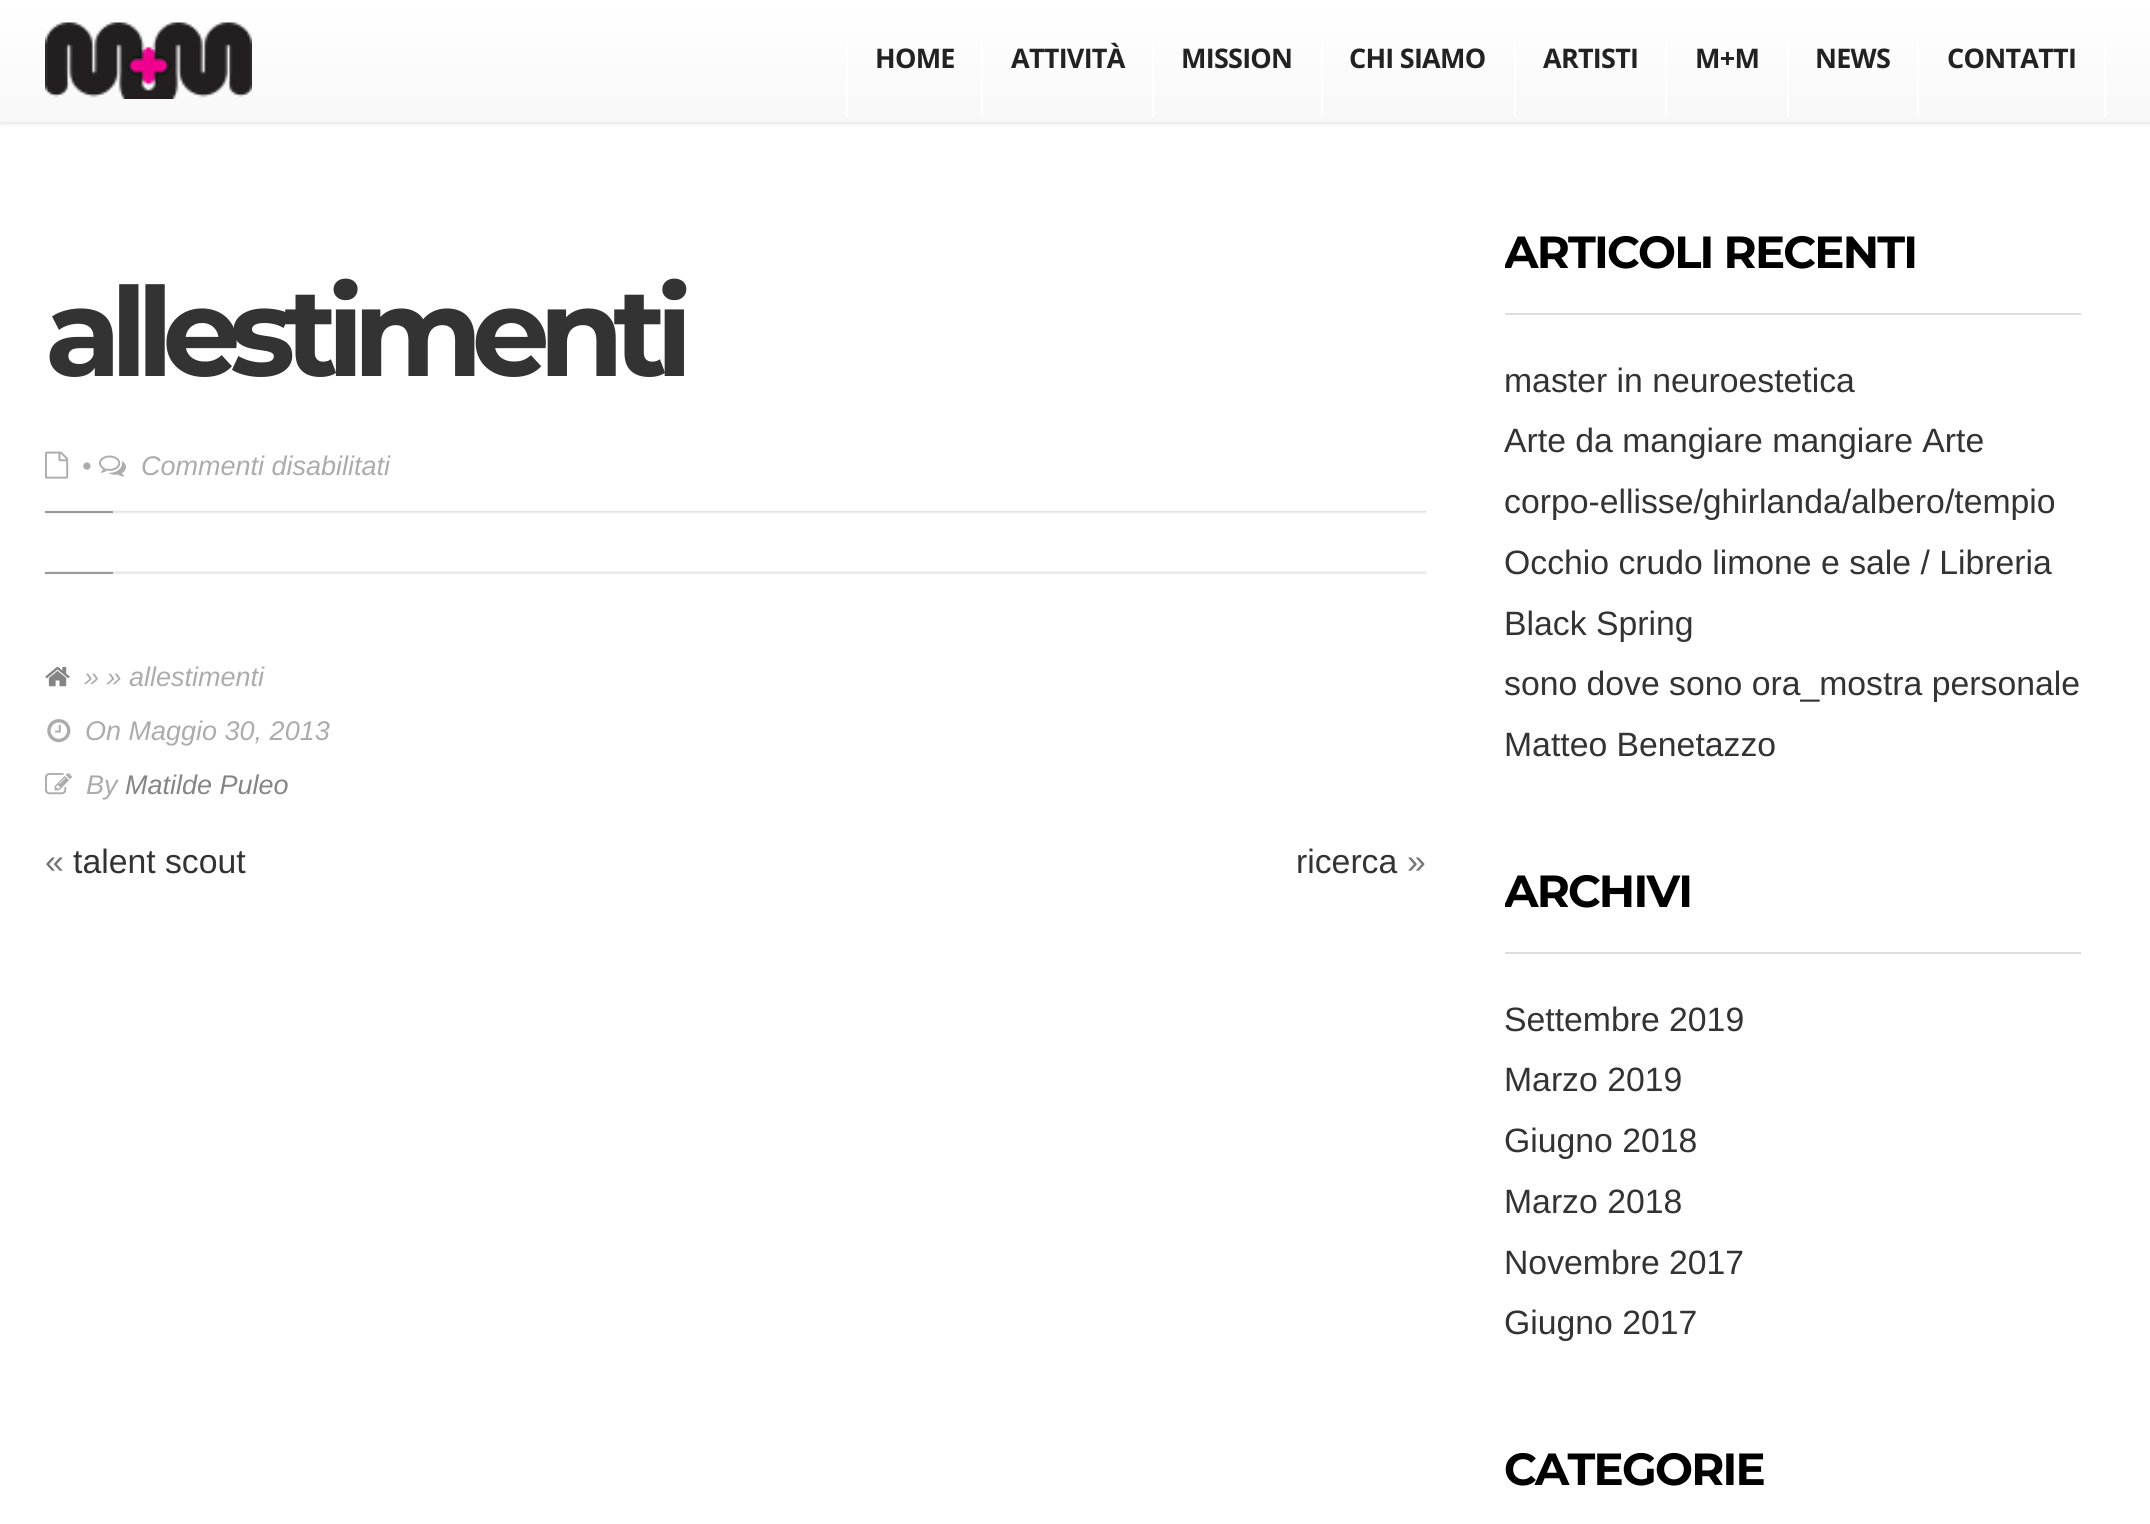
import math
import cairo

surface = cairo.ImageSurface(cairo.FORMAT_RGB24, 2150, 1524)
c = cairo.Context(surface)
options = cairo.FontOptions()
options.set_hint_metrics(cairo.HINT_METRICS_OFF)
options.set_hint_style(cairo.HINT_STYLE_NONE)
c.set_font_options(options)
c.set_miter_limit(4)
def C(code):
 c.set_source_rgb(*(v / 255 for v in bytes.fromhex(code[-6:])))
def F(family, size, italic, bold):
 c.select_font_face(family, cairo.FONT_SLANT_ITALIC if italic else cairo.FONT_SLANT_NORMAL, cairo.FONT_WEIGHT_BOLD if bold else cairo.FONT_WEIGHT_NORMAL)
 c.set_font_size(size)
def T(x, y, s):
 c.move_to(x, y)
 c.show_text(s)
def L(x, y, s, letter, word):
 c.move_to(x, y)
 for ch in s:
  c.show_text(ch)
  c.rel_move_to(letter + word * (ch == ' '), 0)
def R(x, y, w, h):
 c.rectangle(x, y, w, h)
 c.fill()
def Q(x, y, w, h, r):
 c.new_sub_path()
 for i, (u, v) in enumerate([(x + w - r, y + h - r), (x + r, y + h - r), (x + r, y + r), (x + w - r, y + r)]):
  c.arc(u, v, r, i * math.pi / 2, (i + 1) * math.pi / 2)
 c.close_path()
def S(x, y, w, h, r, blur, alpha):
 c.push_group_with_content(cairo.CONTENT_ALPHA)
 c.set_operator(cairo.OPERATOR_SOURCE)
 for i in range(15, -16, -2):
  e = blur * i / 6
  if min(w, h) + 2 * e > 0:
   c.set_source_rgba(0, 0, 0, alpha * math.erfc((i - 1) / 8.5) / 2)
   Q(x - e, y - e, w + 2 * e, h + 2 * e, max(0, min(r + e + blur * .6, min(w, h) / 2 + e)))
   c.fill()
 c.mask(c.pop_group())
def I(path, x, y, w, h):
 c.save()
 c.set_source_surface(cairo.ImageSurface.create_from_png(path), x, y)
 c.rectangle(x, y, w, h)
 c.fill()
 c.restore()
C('ffffff')
c.paint()
C('000000')
S(0,2,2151,122,0,2,.1)
gradient = cairo.LinearGradient(1076,0,1076,122)
gradient.add_color_stop_rgba(0,1,1,1,1)
gradient.add_color_stop_rgba(1,0.973,0.973,0.973,1)
c.set_source(gradient)
R(0,0,2150,122)
I('1.png',45,22,207,77)
C('ffffff')
R(981,44,2,73)
R(846,44,2,73)
F('Open Sans',27,0,1)
C('222222')
L(875,68,'HOME',-.75,0)
C('ffffff')
R(1152,44,2,73)
C('222222')
L(1011,68,'ATTIVITÀ',-.75,0)
C('ffffff')
R(1321,44,2,73)
C('222222')
L(1181,68,'MISSION',-.75,0)
C('ffffff')
R(1514,44,2,73)
C('222222')
L(1349,68,'CHI SIAMO',-.75,0)
C('ffffff')
R(1665,44,2,73)
C('222222')
L(1543,68,'ARTISTI',-.75,0)
C('ffffff')
R(1787,44,2,73)
C('222222')
L(1695,68,'M+M',-.75,0)
C('ffffff')
R(1917,44,2,73)
C('222222')
L(1815,68,'NEWS',-.75,0)
C('ffffff')
R(2104,44,2,73)
C('222222')
L(1947,68,'CONTATTI',-.75,0)
F('Montserrat Thin',123.75,0,0)
C('333333')
L(45,376,'allestimenti',-11.1,0)
I('2.png',45,451,24,28)
F('Liberation Sans',27,1,0)
C('acacac')
T(82,475,'•')
I('3.png',99,455,27,22)
T(141,475,'Commenti disabilitati')
I('4.png',45,510,1382,4)
C('999999')
R(45,511,68,2)
I('5.png',45,571,1382,4)
R(45,572,68,2)
I('6.png',45,666,25,21)
C('acacac')
T(84,686,'» » allestimenti')
I('7.png',47,719,24,24)
T(85,740,'On Maggio 30, 2013')
I('8.png',45,773,27,22)
T(86,794,'By')
C('858585')
T(125,794,'Matilde Puleo')
F('Liberation Sans',33.75,0,0)
C('757575')
T(45,873,'«')
C('333333')
T(73,873,'talent scout')
T(1296,873,'ricerca')
C('757575')
T(1407,873,'»')
C('dddddd')
R(1505,313,576,2)
c.save()
c.rectangle(1505,225,576,88)
c.clip()
F('Montserrat Thin',45,0,0)
C('000000')
L(1504,268,'ARTICOLI RECENTI',-1.75,0)
c.restore()
C('333333')
T(1504,392,'master in neuroestetica')
T(1504,452,'Arte da mangiare mangiare Arte')
T(1504,513,'corpo-ellisse/ghirlanda/albero/tempio')
T(1504,574,'Occhio crudo limone e sale / Libreria')
T(1504,635,'Black Spring')
T(1504,695,'sono dove sono ora_mostra personale')
T(1504,756,'Matteo Benetazzo')
C('dddddd')
R(1505,952,576,2)
c.save()
c.rectangle(1505,864,576,88)
c.clip()
F('Montserrat Thin',45,0,0)
C('000000')
L(1504,907,'ARCHIVI',-1.75,0)
c.restore()
C('333333')
T(1504,1031,'Settembre 2019')
T(1504,1091,'Marzo 2019')
T(1504,1152,'Giugno 2018')
T(1504,1213,'Marzo 2018')
T(1504,1274,'Novembre 2017')
T(1504,1334,'Giugno 2017')
F('Montserrat Thin',45,0,0)
C('000000')
L(1504,1485,'CATEGORIE',-1.75,0)
surface.write_to_png('o.png')
